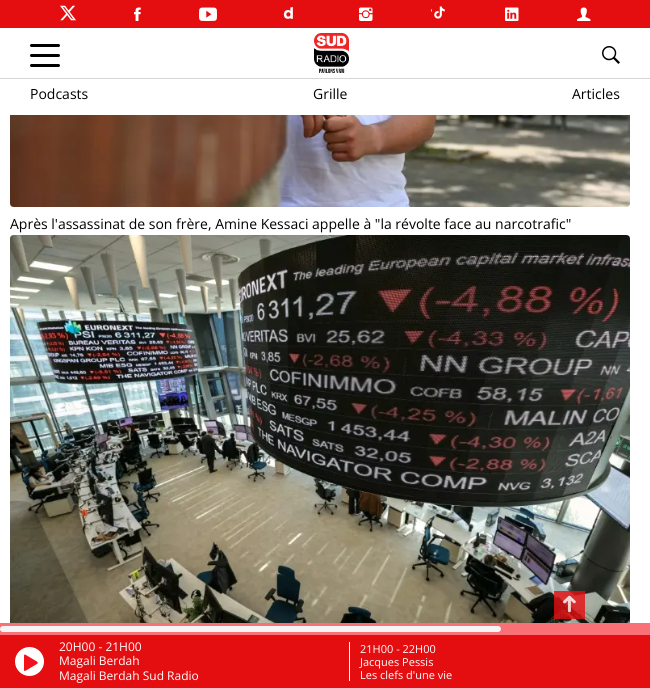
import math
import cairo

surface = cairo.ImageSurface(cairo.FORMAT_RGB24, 650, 688)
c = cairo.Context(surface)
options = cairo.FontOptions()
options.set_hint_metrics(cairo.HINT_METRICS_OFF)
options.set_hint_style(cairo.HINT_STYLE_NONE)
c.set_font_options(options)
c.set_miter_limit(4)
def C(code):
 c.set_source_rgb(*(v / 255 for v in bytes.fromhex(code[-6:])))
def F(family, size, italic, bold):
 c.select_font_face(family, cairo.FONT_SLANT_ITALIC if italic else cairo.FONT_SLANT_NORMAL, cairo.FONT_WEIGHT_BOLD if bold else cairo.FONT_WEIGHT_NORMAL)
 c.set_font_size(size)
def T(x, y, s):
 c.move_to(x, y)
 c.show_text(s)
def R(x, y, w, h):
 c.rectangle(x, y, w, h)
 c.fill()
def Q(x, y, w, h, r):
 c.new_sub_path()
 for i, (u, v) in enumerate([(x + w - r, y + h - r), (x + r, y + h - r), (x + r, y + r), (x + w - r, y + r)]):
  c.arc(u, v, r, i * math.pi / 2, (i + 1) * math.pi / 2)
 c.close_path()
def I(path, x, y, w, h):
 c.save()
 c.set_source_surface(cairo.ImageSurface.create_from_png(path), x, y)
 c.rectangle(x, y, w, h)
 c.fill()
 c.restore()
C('ffffff')
c.paint()
C('e40e11')
R(0,0,650,28)
I('1.png',60,5,16,16)
I('2.png',134,7,7,14)
I('3.png',199,7,18,14)
I('4.png',283,7,10,12)
I('5.png',359,7,14,14)
I('6.png',431,6,14,13)
I('7.png',505,7,14,14)
I('8.png',577,7,14,14)
C('000000')
Q(30,44,30,3,1.5)
c.fill()
Q(30,54,30,3,1.5)
c.fill()
Q(30,64,30,3,1.5)
c.fill()
I('9.png',314,33,35,40)
I('10.png',602,46,18,18)
C('d6d6d6')
R(0,78,650,1)
F('Open Sans',14,0,0)
C('000000')
T(30,99,'Podcasts')
T(313,99,'Grille')
T(572,99,'Articles')
I('11.png',10,115,620,92)
T(10,229,'Après l\'assassinat de son frère, Amine Kessaci appelle à "la révolte face au narcotrafic"')
I('12.png',10,235,620,388)
c.set_source_rgba(0.894,0.055,0.067,0.8)
R(554,591,31,28)
I('13.png',563,595,13,18)
C('e40e11')
R(0,635,650,53)
C('f77177')
R(0,623,650,12)
C('f5f5f5')
Q(0,626,501,6,3)
c.fill()
C('ffffff')
c.arc(29.5,661.5,14.5,0,2 * math.pi)
c.fill()
I('14.png',24,654,14,17)
F('Open Sans',12,0,0)
T(59,651,'20H00 - 21H00')
T(59,665,'Magali Berdah')
T(59,680,'Magali Berdah Sud Radio')
R(349,642,1,39)
F('Open Sans',11,0,0)
T(360,653,'21H00 - 22H00')
T(360,666,'Jacques Pessis')
T(360,679,'Les clefs d\'une vie')
surface.write_to_png('o.png')
